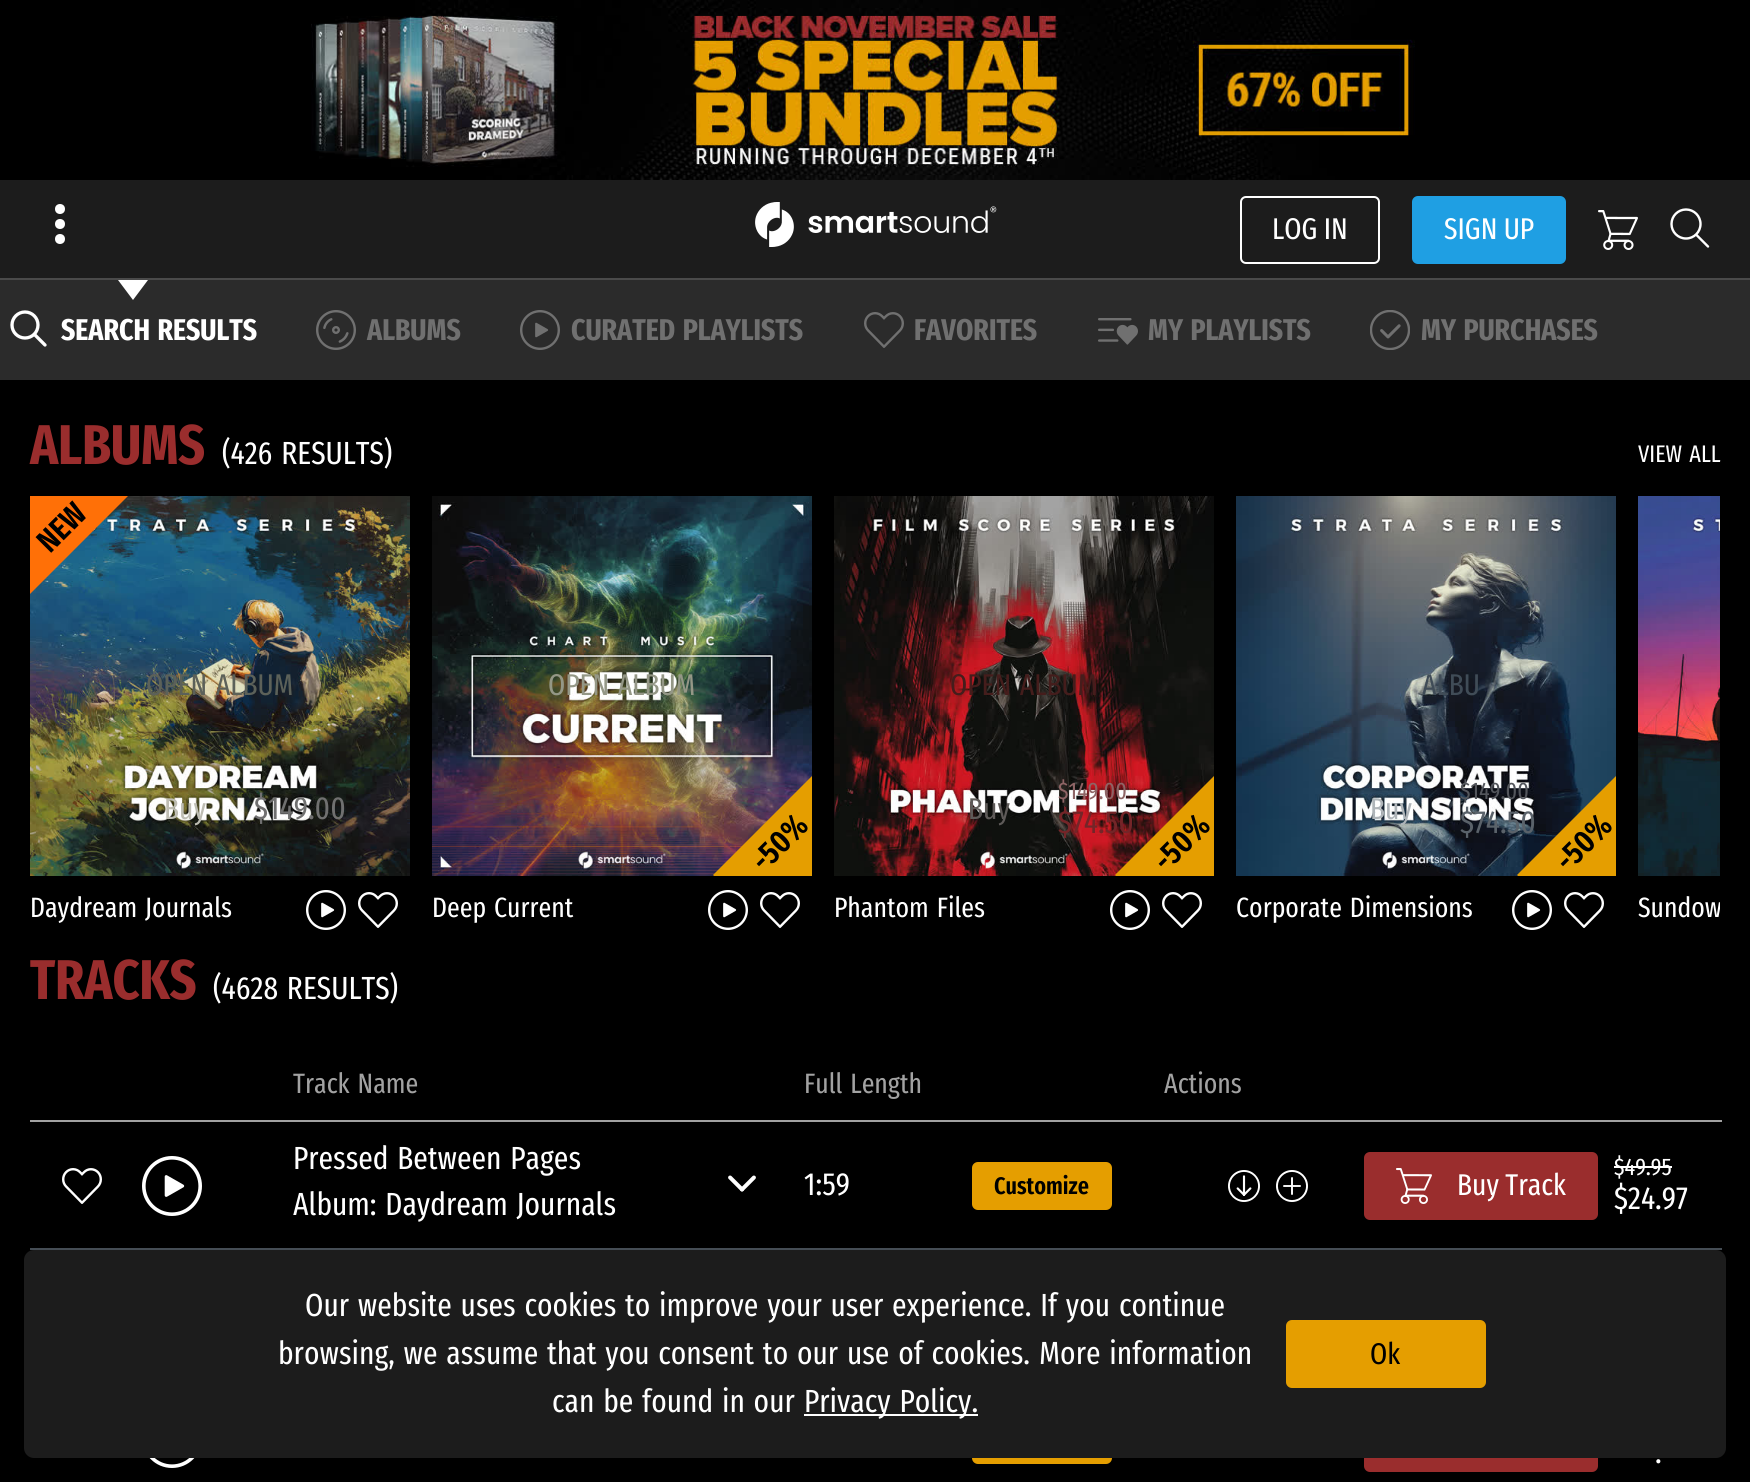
import math
import cairo

surface = cairo.ImageSurface(cairo.FORMAT_RGB24, 1750, 1482)
c = cairo.Context(surface)
options = cairo.FontOptions()
options.set_hint_metrics(cairo.HINT_METRICS_OFF)
options.set_hint_style(cairo.HINT_STYLE_NONE)
c.set_font_options(options)
c.set_miter_limit(4)
def C(code):
 c.set_source_rgb(*(v / 255 for v in bytes.fromhex(code[-6:])))
def F(family, size, italic, bold):
 c.select_font_face(family, cairo.FONT_SLANT_ITALIC if italic else cairo.FONT_SLANT_NORMAL, cairo.FONT_WEIGHT_BOLD if bold else cairo.FONT_WEIGHT_NORMAL)
 c.set_font_size(size)
def T(x, y, s):
 c.move_to(x, y)
 c.show_text(s)
def L(x, y, s, letter, word):
 c.move_to(x, y)
 for ch in s:
  c.show_text(ch)
  c.rel_move_to(letter + word * (ch == ' '), 0)
def R(x, y, w, h):
 c.rectangle(x, y, w, h)
 c.fill()
def Q(x, y, w, h, r):
 c.new_sub_path()
 for i, (u, v) in enumerate([(x + w - r, y + h - r), (x + r, y + h - r), (x + r, y + r), (x + w - r, y + r)]):
  c.arc(u, v, r, i * math.pi / 2, (i + 1) * math.pi / 2)
 c.close_path()
def I(path, x, y, w, h):
 c.save()
 c.set_source_surface(cairo.ImageSurface.create_from_png(path), x, y)
 c.rectangle(x, y, w, h)
 c.fill()
 c.restore()
C('000000')
c.paint()
I('1.png',311,0,1104,180)
C('1c1c1c')
R(0,180,1750,98)
C('4a4a4a')
R(0,278,1750,2)
C('ffffff')
c.arc(60,209,5,0,2 * math.pi)
c.fill()
c.arc(60,224,5,0,2 * math.pi)
c.fill()
c.arc(60,239,5,0,2 * math.pi)
c.fill()
I('2.png',755,202,242,45)
Q(1241,197,138,66,5)
c.stroke()
F('Fira Sans Extra Condensed',30,0,0)
T(1272,239,'LOG IN')
C('1f9fe3')
Q(1413,197,152,66,5)
c.fill_preserve()
c.stroke()
C('ffffff')
T(1444,239,'SIGN UP')
I('3.png',1598,210,40,40)
c.arc(1686,224,14.5,0,2 * math.pi)
c.set_line_width(2.4)
c.stroke()
c.new_path()
c.move_to(1696.5,235)
c.line_to(1708,246.5)
c.set_line_cap(cairo.LINE_CAP_ROUND)
c.stroke()
C('2b2b2b')
R(0,280,1750,100)
C('ffffff')
c.new_path()
c.move_to(133,300)
c.line_to(118,280)
c.line_to(148,280)
c.close_path()
c.fill()
c.arc(25,325,13,0,2 * math.pi)
c.set_line_width(3.3)
c.set_line_cap(cairo.LINE_CAP_BUTT)
c.stroke()
c.new_path()
c.move_to(35,335)
c.line_to(45,345)
c.set_line_cap(cairo.LINE_CAP_ROUND)
c.stroke()
F('Fira Sans Extra Condensed',30,0,1)
L(61,340,'SEARCH RESULTS',0,2)
I('4.png',316,310,40,40)
C('707070')
T(367,340,'ALBUMS')
I('5.png',520,310,40,40)
L(571,340,'CURATED PLAYLISTS',0,2)
I('6.png',864,312,40,36)
T(914,340,'FAVORITES')
I('7.png',1098,318,40,27)
L(1148,340,'MY PLAYLISTS',0,2)
I('8.png',1370,310,40,40)
L(1421,340,'MY PURCHASES',0,2)
F('Fira Sans Extra Condensed',56,0,1)
C('9a2d2d')
T(30,464,'ALBUMS')
F('Fira Sans Extra Condensed',32,0,0)
C('ffffff')
L(222,464,'(426 RESULTS)',0,2)
F('Fira Sans Extra Condensed',24,0,0)
L(1638,462,'VIEW ALL',0,2)
I('9.png',30,496,380,380)
c.save()
c.rectangle(30,496,380,380)
c.clip()
C('ff7007')
c.new_path()
c.move_to(-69,495)
c.line_to(30,396)
c.line_to(129,495)
c.line_to(30,594)
c.close_path()
c.fill()
c.restore()
F('Fira Sans Extra Condensed SemiBold',32,0,0)
C('000000')
c.save()
c.translate(50,554)
c.rotate(-45 * math.pi / 180)
T(0,0,'NEW')
c.restore()
F('Fira Sans Extra Condensed',30,0,0)
C('5c6159')
L(146,695,'OPEN ALBUM',0,2)
C('bebdb3')
T(164,819,'Buy')
F('Fira Sans Extra Condensed',32,0,0)
C('707070')
T(254,819,'$149.00')
F('Fira Sans Extra Condensed',28,0,0)
C('ffffff')
L(30,917,'Daydream Journals',0,2)
I('10.png',306,890,40,40)
I('11.png',358,892,40,36)
I('12.png',432,496,380,380)
F('Fira Sans Extra Condensed',30,0,0)
C('949786')
L(548,695,'OPEN ALBUM',0,2)
F('Fira Sans Extra Condensed',24,0,0)
C('8e724b')
T(696,799,'.')
c.save()
c.rectangle(432,496,380,380)
c.clip()
C('e59e00')
c.new_path()
c.move_to(713,875)
c.line_to(812,776)
c.line_to(911,875)
c.line_to(812,974)
c.close_path()
c.fill()
c.restore()
F('Fira Sans Extra Condensed SemiBold',32,0,0)
C('000000')
c.save()
c.translate(764,873)
c.rotate(-45 * math.pi / 180)
T(0,0,'-50%')
c.restore()
F('Fira Sans Extra Condensed',28,0,0)
C('ffffff')
L(432,917,'Deep Current',0,2)
I('10.png',708,890,40,40)
I('11.png',760,892,40,36)
I('13.png',834,496,380,380)
F('Fira Sans Extra Condensed',30,0,0)
C('451d1c')
L(950,695,'OPEN ALBUM',0,2)
C('5e5a58')
T(968,819,'Buy')
c.save()
c.rectangle(834,496,380,380)
c.clip()
C('e59e00')
c.new_path()
c.move_to(1115,875)
c.line_to(1214,776)
c.line_to(1313,875)
c.line_to(1214,974)
c.close_path()
c.fill()
c.restore()
F('Fira Sans Extra Condensed',24,0,0)
C('8e6465')
T(1058,799,'$149.00')
F('Fira Sans Extra Condensed',32,0,0)
C('742528')
T(1058,833,'$74.50')
F('Fira Sans Extra Condensed SemiBold',32,0,0)
C('000000')
c.save()
c.translate(1166,873)
c.rotate(-45 * math.pi / 180)
T(0,0,'-50%')
c.restore()
F('Fira Sans Extra Condensed',28,0,0)
C('ffffff')
L(834,917,'Phantom Files',0,2)
I('10.png',1110,890,40,40)
I('11.png',1162,892,40,36)
I('14.png',1236,496,380,380)
F('Fira Sans Extra Condensed',30,0,0)
C('404c57')
L(1422,695,'ALBU',0,2)
C('afb5b9')
T(1370,819,'Buy')
c.save()
c.rectangle(1236,496,380,380)
c.clip()
C('e59e00')
c.new_path()
c.move_to(1517,875)
c.line_to(1616,776)
c.line_to(1715,875)
c.line_to(1616,974)
c.close_path()
c.fill()
c.restore()
F('Fira Sans Extra Condensed',24,0,0)
C('53565c')
T(1460,799,'$149.00')
F('Fira Sans Extra Condensed',32,0,0)
C('5a626a')
T(1460,833,'$74.50')
F('Fira Sans Extra Condensed SemiBold',32,0,0)
C('000000')
c.save()
c.translate(1568,873)
c.rotate(-45 * math.pi / 180)
T(0,0,'-50%')
c.restore()
F('Fira Sans Extra Condensed',28,0,0)
C('ffffff')
L(1236,917,'Corporate Dimensions',0,2)
I('10.png',1512,890,40,40)
I('11.png',1564,892,40,36)
I('15.png',1638,496,82,380)
c.save()
c.rectangle(1638,888,82,42)
c.clip()
L(1638,917,'Sundow',0,2)
c.restore()
F('Fira Sans Extra Condensed',56,0,1)
C('9a2d2d')
T(30,999,'TRACKS')
F('Fira Sans Extra Condensed',32,0,0)
C('ffffff')
L(213,999,'(4628 RESULTS)',0,2)
F('Fira Sans Extra Condensed',28,0,0)
C('a2a2a2')
L(293,1093,'Track Name',0,2)
L(804,1093,'Full Length',0,2)
R(30,1120,1692,2)
T(1164,1093,'Actions')
C('454d55')
R(30,1248,1692,2)
I('11.png',62,1168,40,36)
I('16.png',142,1156,60,60)
F('Fira Sans Extra Condensed',32,0,0)
C('ffffff')
L(293,1169,'Pressed Between Pages',0,2)
L(293,1215,'Album: Daydream Journals',0,2)
I('17.png',728,1175,28,17)
T(804,1195,'1:59')
C('e59e00')
Q(973,1163,138,46,5)
c.fill_preserve()
c.set_line_width(2)
c.set_line_cap(cairo.LINE_CAP_BUTT)
c.stroke()
F('Fira Sans Extra Condensed SemiBold',24,0,0)
C('000000')
T(994,1194,'Customize')
I('18.png',1228,1170,32,32)
I('19.png',1276,1170,32,32)
C('9a2d2d')
Q(1365,1153,232,66,5)
c.fill_preserve()
c.stroke()
I('20.png',1396,1168,36,36)
F('Fira Sans Extra Condensed',30,0,0)
C('ffffff')
T(1457,1195,'Buy Track')
F('Fira Sans Extra Condensed',24,0,0)
T(1614,1175,'$49.95')
R(1614,1166,58,2)
F('Fira Sans Extra Condensed',32,0,0)
T(1614,1209,'$24.97')
I('21.png',149,1458,46,10)
C('e59e00')
Q(973,1417,138,46,5)
c.fill_preserve()
c.stroke()
C('9a2d2d')
Q(1365,1405,232,66,5)
c.fill_preserve()
c.stroke()
C('ffffff')
T(1655,1463,'.')
C('1c1c1c')
Q(24,1250,1702,208,10)
c.fill()
C('ffffff')
L(305,1316,'Our website uses cookies to improve your user experience. If you',0,2)
T(1119,1316,'continue')
L(278,1364,'browsing, we assume that you consent to our use of cookies.',0,2)
L(1039,1364,'More information',0,2)
L(552,1412,'can be found in our',0,2)
R(804,1414,174,2)
L(804,1412,'Privacy Policy.',0,2)
C('e59e00')
Q(1287,1321,198,66,5)
c.fill_preserve()
c.stroke()
F('Fira Sans Extra Condensed',30,0,0)
C('000000')
T(1370,1364,'Ok')
surface.write_to_png('o.png')
